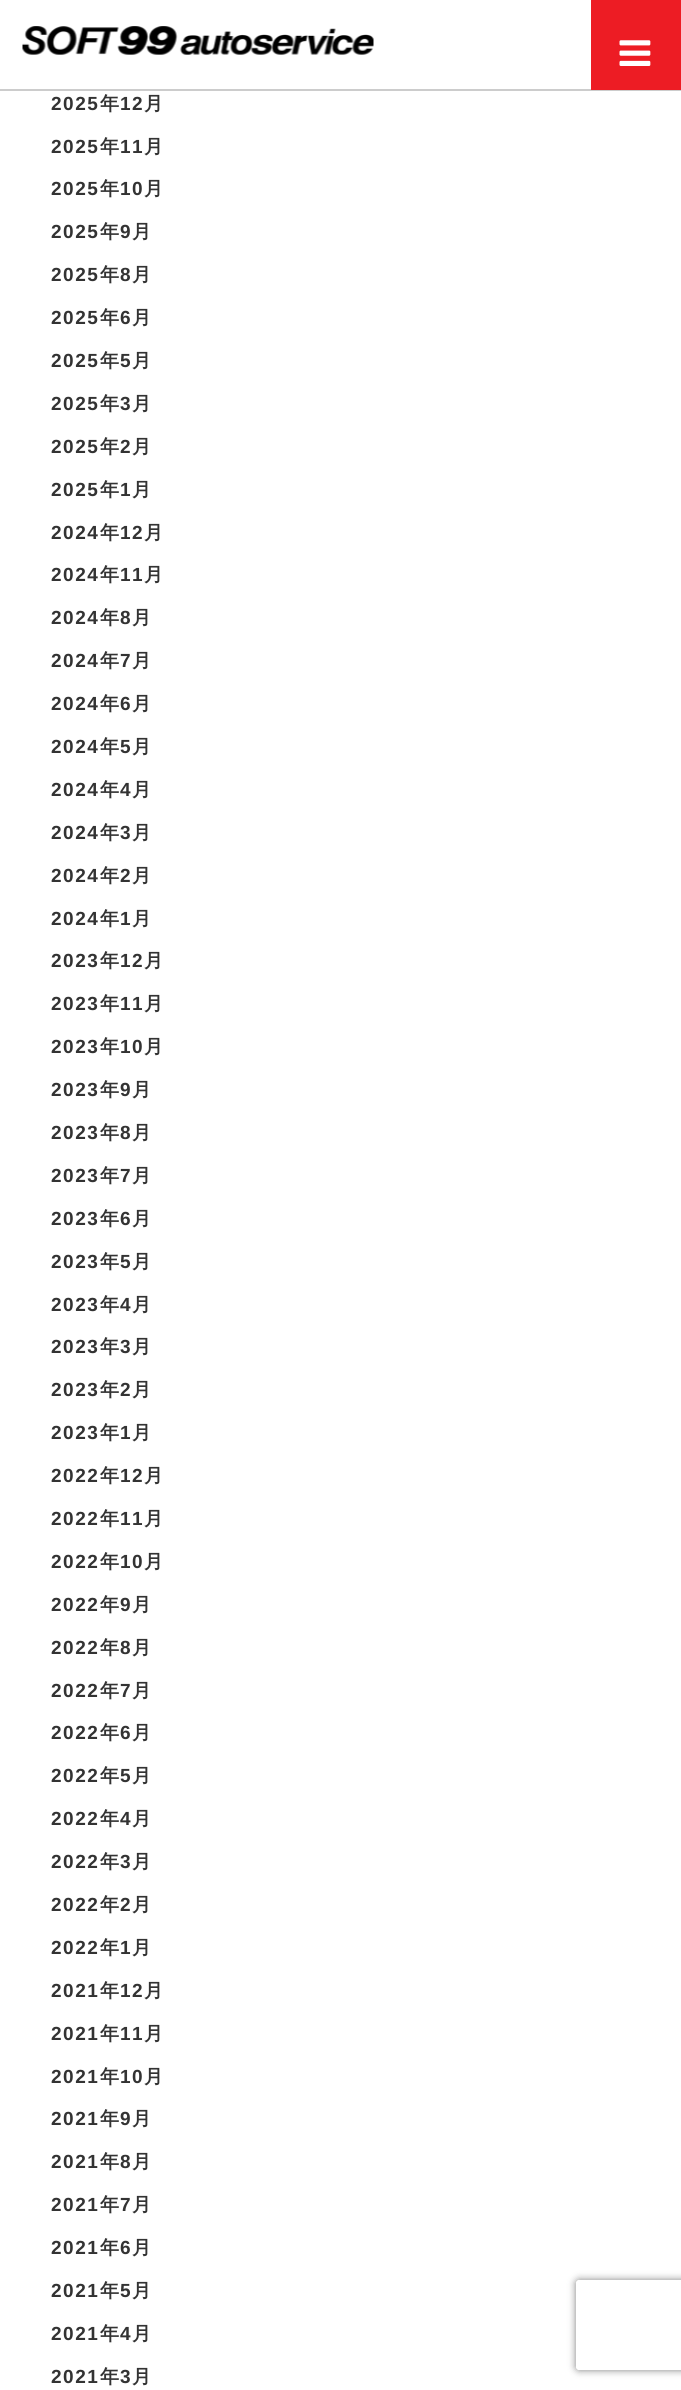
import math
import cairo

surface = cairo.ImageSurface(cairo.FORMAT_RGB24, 681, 2390)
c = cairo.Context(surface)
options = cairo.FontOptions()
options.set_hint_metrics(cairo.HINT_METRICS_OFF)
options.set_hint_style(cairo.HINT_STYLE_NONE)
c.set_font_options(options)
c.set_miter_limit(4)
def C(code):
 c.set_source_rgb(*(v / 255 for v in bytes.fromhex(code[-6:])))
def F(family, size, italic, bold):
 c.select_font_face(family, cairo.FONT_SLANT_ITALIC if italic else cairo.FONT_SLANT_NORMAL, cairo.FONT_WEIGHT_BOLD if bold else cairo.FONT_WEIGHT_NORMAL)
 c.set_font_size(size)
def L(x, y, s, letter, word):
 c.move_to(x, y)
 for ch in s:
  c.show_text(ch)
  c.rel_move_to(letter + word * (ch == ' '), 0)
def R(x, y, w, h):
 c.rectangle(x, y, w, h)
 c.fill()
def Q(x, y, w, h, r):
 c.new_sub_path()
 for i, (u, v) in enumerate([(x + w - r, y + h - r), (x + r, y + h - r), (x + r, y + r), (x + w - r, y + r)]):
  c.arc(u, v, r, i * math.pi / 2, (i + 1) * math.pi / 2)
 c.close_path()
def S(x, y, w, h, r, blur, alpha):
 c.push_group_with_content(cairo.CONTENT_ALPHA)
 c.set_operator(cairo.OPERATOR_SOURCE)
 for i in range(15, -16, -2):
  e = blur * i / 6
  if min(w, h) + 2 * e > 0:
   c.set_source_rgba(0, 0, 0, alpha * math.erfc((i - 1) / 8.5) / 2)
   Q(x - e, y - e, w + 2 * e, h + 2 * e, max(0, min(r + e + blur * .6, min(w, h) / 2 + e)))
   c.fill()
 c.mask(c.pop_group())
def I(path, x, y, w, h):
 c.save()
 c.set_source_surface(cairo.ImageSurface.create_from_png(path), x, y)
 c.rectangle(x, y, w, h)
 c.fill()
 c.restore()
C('ffffff')
c.paint()
C('cccccc')
R(0,89,681,2)
C('ed1c24')
R(591,0,90,90)
I('1.png',619,40,32,26)
I('2.png',22,26,352,29)
F('Liberation Sans',19,0,1)
C('333333')
L(51,110,'2025',1.5,0)
F('WenQuanYi Zen Hei',19,0,1)
L(100,110,'年',1.5,0)
F('Liberation Sans',19,0,1)
L(120,110,'12',1.5,0)
F('WenQuanYi Zen Hei',19,0,1)
L(144,110,'月',1.5,0)
F('Liberation Sans',19,0,1)
L(51,153,'2025',1.5,0)
F('WenQuanYi Zen Hei',19,0,1)
L(100,153,'年',1.5,0)
F('Liberation Sans',19,0,1)
L(120,153,'11',1.5,0)
F('WenQuanYi Zen Hei',19,0,1)
L(144,153,'月',1.5,0)
F('Liberation Sans',19,0,1)
L(51,195,'2025',1.5,0)
F('WenQuanYi Zen Hei',19,0,1)
L(100,195,'年',1.5,0)
F('Liberation Sans',19,0,1)
L(120,195,'10',1.5,0)
F('WenQuanYi Zen Hei',19,0,1)
L(144,195,'月',1.5,0)
F('Liberation Sans',19,0,1)
L(51,238,'2025',1.5,0)
F('WenQuanYi Zen Hei',19,0,1)
L(100,238,'年',1.5,0)
F('Liberation Sans',19,0,1)
L(120,238,'9',1.5,0)
F('WenQuanYi Zen Hei',19,0,1)
L(132,238,'月',1.5,0)
F('Liberation Sans',19,0,1)
L(51,281,'2025',1.5,0)
F('WenQuanYi Zen Hei',19,0,1)
L(100,281,'年',1.5,0)
F('Liberation Sans',19,0,1)
L(120,281,'8',1.5,0)
F('WenQuanYi Zen Hei',19,0,1)
L(132,281,'月',1.5,0)
F('Liberation Sans',19,0,1)
L(51,324,'2025',1.5,0)
F('WenQuanYi Zen Hei',19,0,1)
L(100,324,'年',1.5,0)
F('Liberation Sans',19,0,1)
L(120,324,'6',1.5,0)
F('WenQuanYi Zen Hei',19,0,1)
L(132,324,'月',1.5,0)
F('Liberation Sans',19,0,1)
L(51,367,'2025',1.5,0)
F('WenQuanYi Zen Hei',19,0,1)
L(100,367,'年',1.5,0)
F('Liberation Sans',19,0,1)
L(120,367,'5',1.5,0)
F('WenQuanYi Zen Hei',19,0,1)
L(132,367,'月',1.5,0)
F('Liberation Sans',19,0,1)
L(51,410,'2025',1.5,0)
F('WenQuanYi Zen Hei',19,0,1)
L(100,410,'年',1.5,0)
F('Liberation Sans',19,0,1)
L(120,410,'3',1.5,0)
F('WenQuanYi Zen Hei',19,0,1)
L(132,410,'月',1.5,0)
F('Liberation Sans',19,0,1)
L(51,453,'2025',1.5,0)
F('WenQuanYi Zen Hei',19,0,1)
L(100,453,'年',1.5,0)
F('Liberation Sans',19,0,1)
L(120,453,'2',1.5,0)
F('WenQuanYi Zen Hei',19,0,1)
L(132,453,'月',1.5,0)
F('Liberation Sans',19,0,1)
L(51,496,'2025',1.5,0)
F('WenQuanYi Zen Hei',19,0,1)
L(100,496,'年',1.5,0)
F('Liberation Sans',19,0,1)
L(120,496,'1',1.5,0)
F('WenQuanYi Zen Hei',19,0,1)
L(132,496,'月',1.5,0)
F('Liberation Sans',19,0,1)
L(51,539,'2024',1.5,0)
F('WenQuanYi Zen Hei',19,0,1)
L(100,539,'年',1.5,0)
F('Liberation Sans',19,0,1)
L(120,539,'12',1.5,0)
F('WenQuanYi Zen Hei',19,0,1)
L(144,539,'月',1.5,0)
F('Liberation Sans',19,0,1)
L(51,581,'2024',1.5,0)
F('WenQuanYi Zen Hei',19,0,1)
L(100,581,'年',1.5,0)
F('Liberation Sans',19,0,1)
L(120,581,'11',1.5,0)
F('WenQuanYi Zen Hei',19,0,1)
L(144,581,'月',1.5,0)
F('Liberation Sans',19,0,1)
L(51,624,'2024',1.5,0)
F('WenQuanYi Zen Hei',19,0,1)
L(100,624,'年',1.5,0)
F('Liberation Sans',19,0,1)
L(120,624,'8',1.5,0)
F('WenQuanYi Zen Hei',19,0,1)
L(132,624,'月',1.5,0)
F('Liberation Sans',19,0,1)
L(51,667,'2024',1.5,0)
F('WenQuanYi Zen Hei',19,0,1)
L(100,667,'年',1.5,0)
F('Liberation Sans',19,0,1)
L(120,667,'7',1.5,0)
F('WenQuanYi Zen Hei',19,0,1)
L(132,667,'月',1.5,0)
F('Liberation Sans',19,0,1)
L(51,710,'2024',1.5,0)
F('WenQuanYi Zen Hei',19,0,1)
L(100,710,'年',1.5,0)
F('Liberation Sans',19,0,1)
L(120,710,'6',1.5,0)
F('WenQuanYi Zen Hei',19,0,1)
L(132,710,'月',1.5,0)
F('Liberation Sans',19,0,1)
L(51,753,'2024',1.5,0)
F('WenQuanYi Zen Hei',19,0,1)
L(100,753,'年',1.5,0)
F('Liberation Sans',19,0,1)
L(120,753,'5',1.5,0)
F('WenQuanYi Zen Hei',19,0,1)
L(132,753,'月',1.5,0)
F('Liberation Sans',19,0,1)
L(51,796,'2024',1.5,0)
F('WenQuanYi Zen Hei',19,0,1)
L(100,796,'年',1.5,0)
F('Liberation Sans',19,0,1)
L(120,796,'4',1.5,0)
F('WenQuanYi Zen Hei',19,0,1)
L(132,796,'月',1.5,0)
F('Liberation Sans',19,0,1)
L(51,839,'2024',1.5,0)
F('WenQuanYi Zen Hei',19,0,1)
L(100,839,'年',1.5,0)
F('Liberation Sans',19,0,1)
L(120,839,'3',1.5,0)
F('WenQuanYi Zen Hei',19,0,1)
L(132,839,'月',1.5,0)
F('Liberation Sans',19,0,1)
L(51,882,'2024',1.5,0)
F('WenQuanYi Zen Hei',19,0,1)
L(100,882,'年',1.5,0)
F('Liberation Sans',19,0,1)
L(120,882,'2',1.5,0)
F('WenQuanYi Zen Hei',19,0,1)
L(132,882,'月',1.5,0)
F('Liberation Sans',19,0,1)
L(51,925,'2024',1.5,0)
F('WenQuanYi Zen Hei',19,0,1)
L(100,925,'年',1.5,0)
F('Liberation Sans',19,0,1)
L(120,925,'1',1.5,0)
F('WenQuanYi Zen Hei',19,0,1)
L(132,925,'月',1.5,0)
F('Liberation Sans',19,0,1)
L(51,967,'2023',1.5,0)
F('WenQuanYi Zen Hei',19,0,1)
L(100,967,'年',1.5,0)
F('Liberation Sans',19,0,1)
L(120,967,'12',1.5,0)
F('WenQuanYi Zen Hei',19,0,1)
L(144,967,'月',1.5,0)
F('Liberation Sans',19,0,1)
L(51,1010,'2023',1.5,0)
F('WenQuanYi Zen Hei',19,0,1)
L(100,1010,'年',1.5,0)
F('Liberation Sans',19,0,1)
L(120,1010,'11',1.5,0)
F('WenQuanYi Zen Hei',19,0,1)
L(144,1010,'月',1.5,0)
F('Liberation Sans',19,0,1)
L(51,1053,'2023',1.5,0)
F('WenQuanYi Zen Hei',19,0,1)
L(100,1053,'年',1.5,0)
F('Liberation Sans',19,0,1)
L(120,1053,'10',1.5,0)
F('WenQuanYi Zen Hei',19,0,1)
L(144,1053,'月',1.5,0)
F('Liberation Sans',19,0,1)
L(51,1096,'2023',1.5,0)
F('WenQuanYi Zen Hei',19,0,1)
L(100,1096,'年',1.5,0)
F('Liberation Sans',19,0,1)
L(120,1096,'9',1.5,0)
F('WenQuanYi Zen Hei',19,0,1)
L(132,1096,'月',1.5,0)
F('Liberation Sans',19,0,1)
L(51,1139,'2023',1.5,0)
F('WenQuanYi Zen Hei',19,0,1)
L(100,1139,'年',1.5,0)
F('Liberation Sans',19,0,1)
L(120,1139,'8',1.5,0)
F('WenQuanYi Zen Hei',19,0,1)
L(132,1139,'月',1.5,0)
F('Liberation Sans',19,0,1)
L(51,1182,'2023',1.5,0)
F('WenQuanYi Zen Hei',19,0,1)
L(100,1182,'年',1.5,0)
F('Liberation Sans',19,0,1)
L(120,1182,'7',1.5,0)
F('WenQuanYi Zen Hei',19,0,1)
L(132,1182,'月',1.5,0)
F('Liberation Sans',19,0,1)
L(51,1225,'2023',1.5,0)
F('WenQuanYi Zen Hei',19,0,1)
L(100,1225,'年',1.5,0)
F('Liberation Sans',19,0,1)
L(120,1225,'6',1.5,0)
F('WenQuanYi Zen Hei',19,0,1)
L(132,1225,'月',1.5,0)
F('Liberation Sans',19,0,1)
L(51,1268,'2023',1.5,0)
F('WenQuanYi Zen Hei',19,0,1)
L(100,1268,'年',1.5,0)
F('Liberation Sans',19,0,1)
L(120,1268,'5',1.5,0)
F('WenQuanYi Zen Hei',19,0,1)
L(132,1268,'月',1.5,0)
F('Liberation Sans',19,0,1)
L(51,1311,'2023',1.5,0)
F('WenQuanYi Zen Hei',19,0,1)
L(100,1311,'年',1.5,0)
F('Liberation Sans',19,0,1)
L(120,1311,'4',1.5,0)
F('WenQuanYi Zen Hei',19,0,1)
L(132,1311,'月',1.5,0)
F('Liberation Sans',19,0,1)
L(51,1353,'2023',1.5,0)
F('WenQuanYi Zen Hei',19,0,1)
L(100,1353,'年',1.5,0)
F('Liberation Sans',19,0,1)
L(120,1353,'3',1.5,0)
F('WenQuanYi Zen Hei',19,0,1)
L(132,1353,'月',1.5,0)
F('Liberation Sans',19,0,1)
L(51,1396,'2023',1.5,0)
F('WenQuanYi Zen Hei',19,0,1)
L(100,1396,'年',1.5,0)
F('Liberation Sans',19,0,1)
L(120,1396,'2',1.5,0)
F('WenQuanYi Zen Hei',19,0,1)
L(132,1396,'月',1.5,0)
F('Liberation Sans',19,0,1)
L(51,1439,'2023',1.5,0)
F('WenQuanYi Zen Hei',19,0,1)
L(100,1439,'年',1.5,0)
F('Liberation Sans',19,0,1)
L(120,1439,'1',1.5,0)
F('WenQuanYi Zen Hei',19,0,1)
L(132,1439,'月',1.5,0)
F('Liberation Sans',19,0,1)
L(51,1482,'2022',1.5,0)
F('WenQuanYi Zen Hei',19,0,1)
L(100,1482,'年',1.5,0)
F('Liberation Sans',19,0,1)
L(120,1482,'12',1.5,0)
F('WenQuanYi Zen Hei',19,0,1)
L(144,1482,'月',1.5,0)
F('Liberation Sans',19,0,1)
L(51,1525,'2022',1.5,0)
F('WenQuanYi Zen Hei',19,0,1)
L(100,1525,'年',1.5,0)
F('Liberation Sans',19,0,1)
L(120,1525,'11',1.5,0)
F('WenQuanYi Zen Hei',19,0,1)
L(144,1525,'月',1.5,0)
F('Liberation Sans',19,0,1)
L(51,1568,'2022',1.5,0)
F('WenQuanYi Zen Hei',19,0,1)
L(100,1568,'年',1.5,0)
F('Liberation Sans',19,0,1)
L(120,1568,'10',1.5,0)
F('WenQuanYi Zen Hei',19,0,1)
L(144,1568,'月',1.5,0)
F('Liberation Sans',19,0,1)
L(51,1611,'2022',1.5,0)
F('WenQuanYi Zen Hei',19,0,1)
L(100,1611,'年',1.5,0)
F('Liberation Sans',19,0,1)
L(120,1611,'9',1.5,0)
F('WenQuanYi Zen Hei',19,0,1)
L(132,1611,'月',1.5,0)
F('Liberation Sans',19,0,1)
L(51,1654,'2022',1.5,0)
F('WenQuanYi Zen Hei',19,0,1)
L(100,1654,'年',1.5,0)
F('Liberation Sans',19,0,1)
L(120,1654,'8',1.5,0)
F('WenQuanYi Zen Hei',19,0,1)
L(132,1654,'月',1.5,0)
F('Liberation Sans',19,0,1)
L(51,1697,'2022',1.5,0)
F('WenQuanYi Zen Hei',19,0,1)
L(100,1697,'年',1.5,0)
F('Liberation Sans',19,0,1)
L(120,1697,'7',1.5,0)
F('WenQuanYi Zen Hei',19,0,1)
L(132,1697,'月',1.5,0)
F('Liberation Sans',19,0,1)
L(51,1739,'2022',1.5,0)
F('WenQuanYi Zen Hei',19,0,1)
L(100,1739,'年',1.5,0)
F('Liberation Sans',19,0,1)
L(120,1739,'6',1.5,0)
F('WenQuanYi Zen Hei',19,0,1)
L(132,1739,'月',1.5,0)
F('Liberation Sans',19,0,1)
L(51,1782,'2022',1.5,0)
F('WenQuanYi Zen Hei',19,0,1)
L(100,1782,'年',1.5,0)
F('Liberation Sans',19,0,1)
L(120,1782,'5',1.5,0)
F('WenQuanYi Zen Hei',19,0,1)
L(132,1782,'月',1.5,0)
F('Liberation Sans',19,0,1)
L(51,1825,'2022',1.5,0)
F('WenQuanYi Zen Hei',19,0,1)
L(100,1825,'年',1.5,0)
F('Liberation Sans',19,0,1)
L(120,1825,'4',1.5,0)
F('WenQuanYi Zen Hei',19,0,1)
L(132,1825,'月',1.5,0)
F('Liberation Sans',19,0,1)
L(51,1868,'2022',1.5,0)
F('WenQuanYi Zen Hei',19,0,1)
L(100,1868,'年',1.5,0)
F('Liberation Sans',19,0,1)
L(120,1868,'3',1.5,0)
F('WenQuanYi Zen Hei',19,0,1)
L(132,1868,'月',1.5,0)
F('Liberation Sans',19,0,1)
L(51,1911,'2022',1.5,0)
F('WenQuanYi Zen Hei',19,0,1)
L(100,1911,'年',1.5,0)
F('Liberation Sans',19,0,1)
L(120,1911,'2',1.5,0)
F('WenQuanYi Zen Hei',19,0,1)
L(132,1911,'月',1.5,0)
F('Liberation Sans',19,0,1)
L(51,1954,'2022',1.5,0)
F('WenQuanYi Zen Hei',19,0,1)
L(100,1954,'年',1.5,0)
F('Liberation Sans',19,0,1)
L(120,1954,'1',1.5,0)
F('WenQuanYi Zen Hei',19,0,1)
L(132,1954,'月',1.5,0)
F('Liberation Sans',19,0,1)
L(51,1997,'2021',1.5,0)
F('WenQuanYi Zen Hei',19,0,1)
L(100,1997,'年',1.5,0)
F('Liberation Sans',19,0,1)
L(120,1997,'12',1.5,0)
F('WenQuanYi Zen Hei',19,0,1)
L(144,1997,'月',1.5,0)
F('Liberation Sans',19,0,1)
L(51,2040,'2021',1.5,0)
F('WenQuanYi Zen Hei',19,0,1)
L(100,2040,'年',1.5,0)
F('Liberation Sans',19,0,1)
L(120,2040,'11',1.5,0)
F('WenQuanYi Zen Hei',19,0,1)
L(144,2040,'月',1.5,0)
F('Liberation Sans',19,0,1)
L(51,2083,'2021',1.5,0)
F('WenQuanYi Zen Hei',19,0,1)
L(100,2083,'年',1.5,0)
F('Liberation Sans',19,0,1)
L(120,2083,'10',1.5,0)
F('WenQuanYi Zen Hei',19,0,1)
L(144,2083,'月',1.5,0)
F('Liberation Sans',19,0,1)
L(51,2125,'2021',1.5,0)
F('WenQuanYi Zen Hei',19,0,1)
L(100,2125,'年',1.5,0)
F('Liberation Sans',19,0,1)
L(120,2125,'9',1.5,0)
F('WenQuanYi Zen Hei',19,0,1)
L(132,2125,'月',1.5,0)
F('Liberation Sans',19,0,1)
L(51,2168,'2021',1.5,0)
F('WenQuanYi Zen Hei',19,0,1)
L(100,2168,'年',1.5,0)
F('Liberation Sans',19,0,1)
L(120,2168,'8',1.5,0)
F('WenQuanYi Zen Hei',19,0,1)
L(132,2168,'月',1.5,0)
F('Liberation Sans',19,0,1)
L(51,2211,'2021',1.5,0)
F('WenQuanYi Zen Hei',19,0,1)
L(100,2211,'年',1.5,0)
F('Liberation Sans',19,0,1)
L(120,2211,'7',1.5,0)
F('WenQuanYi Zen Hei',19,0,1)
L(132,2211,'月',1.5,0)
F('Liberation Sans',19,0,1)
L(51,2254,'2021',1.5,0)
F('WenQuanYi Zen Hei',19,0,1)
L(100,2254,'年',1.5,0)
F('Liberation Sans',19,0,1)
L(120,2254,'6',1.5,0)
F('WenQuanYi Zen Hei',19,0,1)
L(132,2254,'月',1.5,0)
F('Liberation Sans',19,0,1)
L(51,2297,'2021',1.5,0)
F('WenQuanYi Zen Hei',19,0,1)
L(100,2297,'年',1.5,0)
F('Liberation Sans',19,0,1)
L(120,2297,'5',1.5,0)
F('WenQuanYi Zen Hei',19,0,1)
L(132,2297,'月',1.5,0)
F('Liberation Sans',19,0,1)
L(51,2340,'2021',1.5,0)
F('WenQuanYi Zen Hei',19,0,1)
L(100,2340,'年',1.5,0)
F('Liberation Sans',19,0,1)
L(120,2340,'4',1.5,0)
F('WenQuanYi Zen Hei',19,0,1)
L(132,2340,'月',1.5,0)
F('Liberation Sans',19,0,1)
L(51,2383,'2021',1.5,0)
F('WenQuanYi Zen Hei',19,0,1)
L(100,2383,'年',1.5,0)
F('Liberation Sans',19,0,1)
L(120,2383,'3',1.5,0)
F('WenQuanYi Zen Hei',19,0,1)
L(132,2383,'月',1.5,0)
c.save()
c.set_fill_rule(cairo.FILL_RULE_EVEN_ODD)
c.new_path()
c.move_to(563,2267)
c.line_to(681,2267)
c.line_to(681,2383)
c.line_to(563,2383)
c.close_path()
c.move_to(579,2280)
c.line_to(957,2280)
c.curve_to(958.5,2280,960,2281.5,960,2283)
c.line_to(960,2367)
c.curve_to(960,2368.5,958.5,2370,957,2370)
c.line_to(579,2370)
c.curve_to(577.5,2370,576,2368.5,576,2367)
c.line_to(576,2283)
c.curve_to(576,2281.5,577.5,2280,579,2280)
c.close_path()
c.clip()
C('808080')
S(576,2280,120,90,3,4,1)
c.restore()
surface.write_to_png('o.png')
